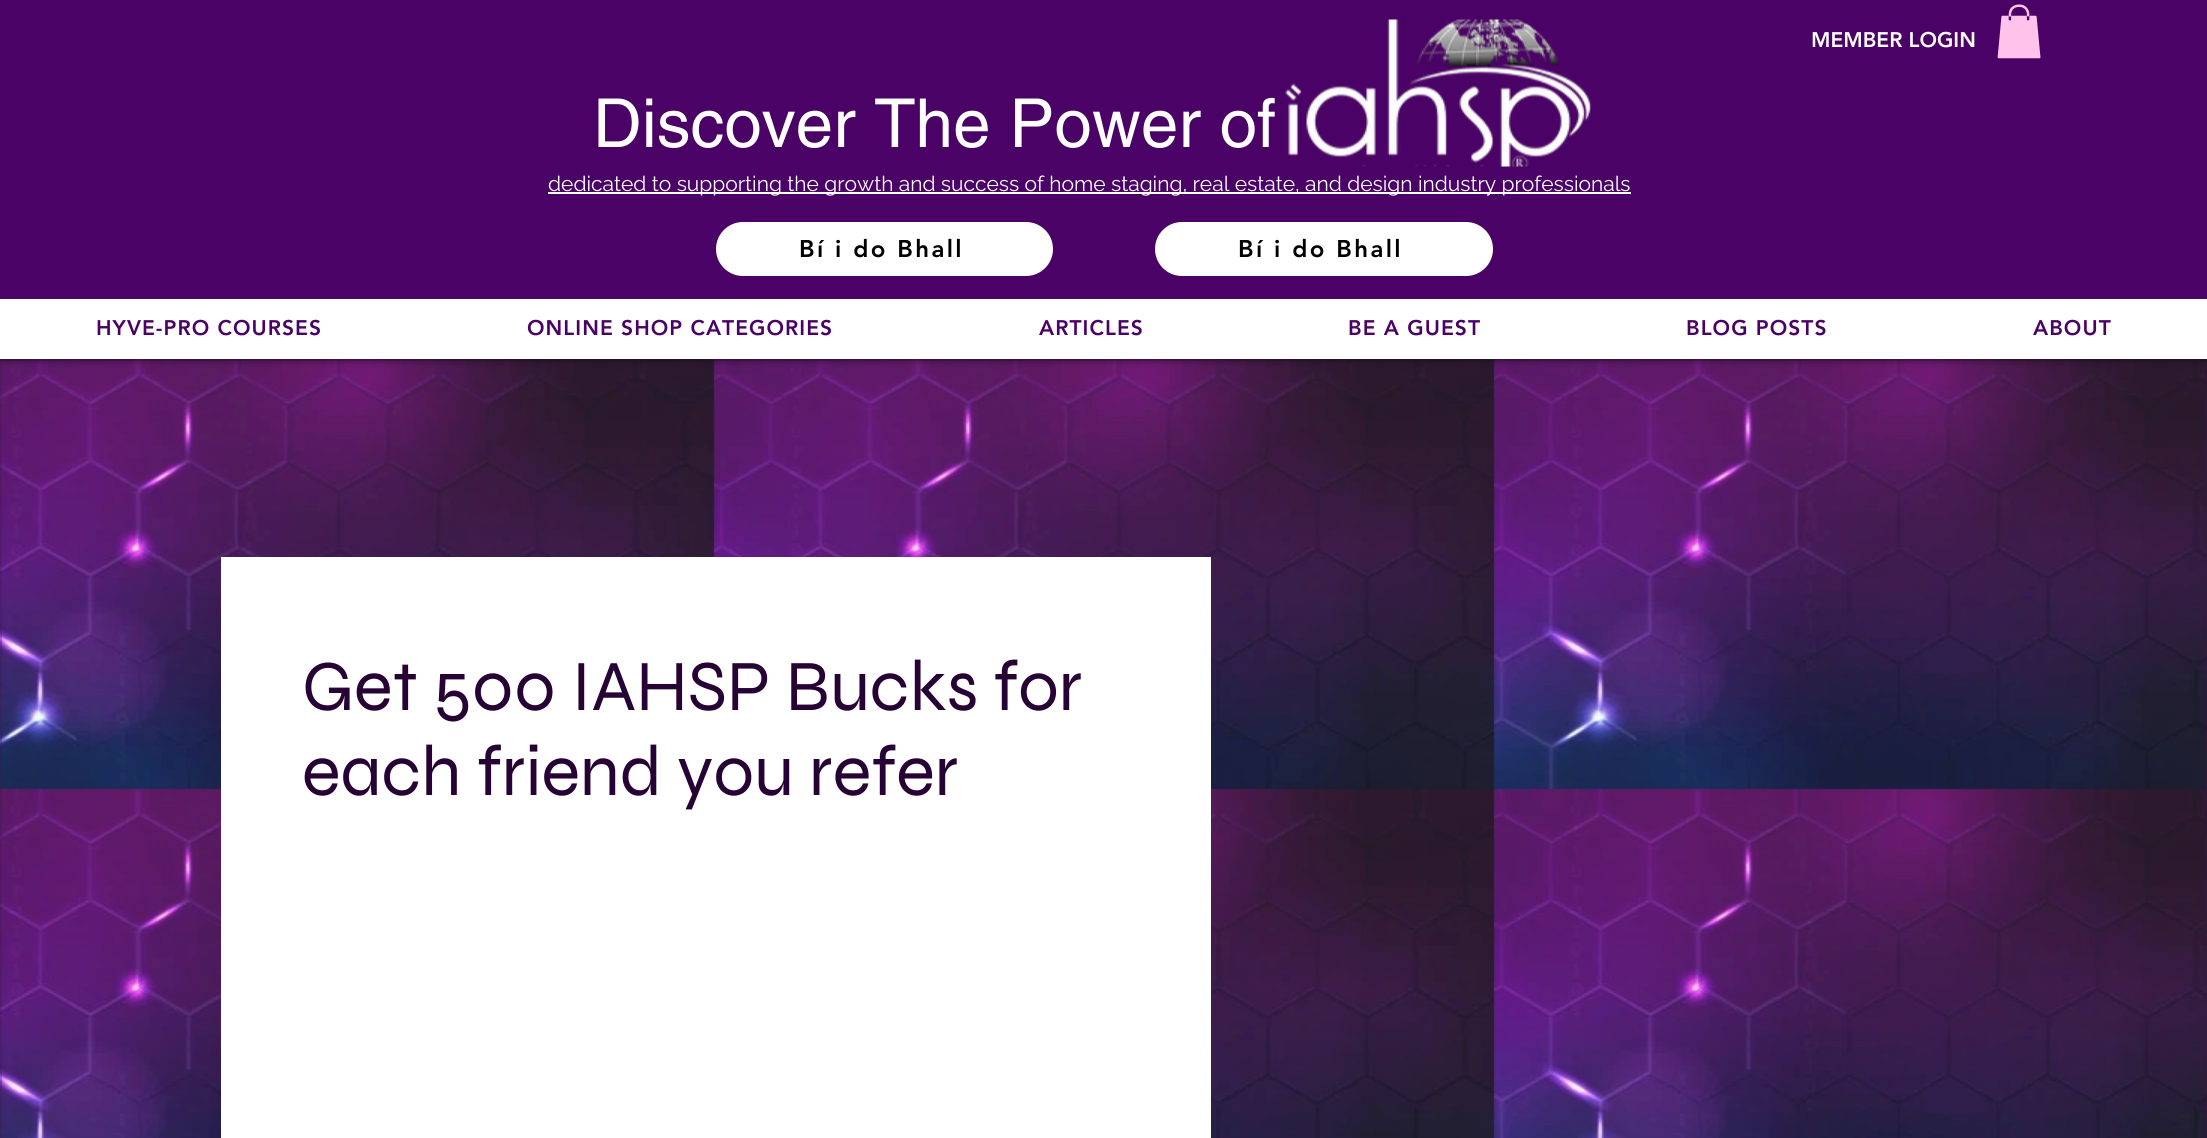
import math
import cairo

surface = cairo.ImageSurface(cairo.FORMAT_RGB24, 2207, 1138)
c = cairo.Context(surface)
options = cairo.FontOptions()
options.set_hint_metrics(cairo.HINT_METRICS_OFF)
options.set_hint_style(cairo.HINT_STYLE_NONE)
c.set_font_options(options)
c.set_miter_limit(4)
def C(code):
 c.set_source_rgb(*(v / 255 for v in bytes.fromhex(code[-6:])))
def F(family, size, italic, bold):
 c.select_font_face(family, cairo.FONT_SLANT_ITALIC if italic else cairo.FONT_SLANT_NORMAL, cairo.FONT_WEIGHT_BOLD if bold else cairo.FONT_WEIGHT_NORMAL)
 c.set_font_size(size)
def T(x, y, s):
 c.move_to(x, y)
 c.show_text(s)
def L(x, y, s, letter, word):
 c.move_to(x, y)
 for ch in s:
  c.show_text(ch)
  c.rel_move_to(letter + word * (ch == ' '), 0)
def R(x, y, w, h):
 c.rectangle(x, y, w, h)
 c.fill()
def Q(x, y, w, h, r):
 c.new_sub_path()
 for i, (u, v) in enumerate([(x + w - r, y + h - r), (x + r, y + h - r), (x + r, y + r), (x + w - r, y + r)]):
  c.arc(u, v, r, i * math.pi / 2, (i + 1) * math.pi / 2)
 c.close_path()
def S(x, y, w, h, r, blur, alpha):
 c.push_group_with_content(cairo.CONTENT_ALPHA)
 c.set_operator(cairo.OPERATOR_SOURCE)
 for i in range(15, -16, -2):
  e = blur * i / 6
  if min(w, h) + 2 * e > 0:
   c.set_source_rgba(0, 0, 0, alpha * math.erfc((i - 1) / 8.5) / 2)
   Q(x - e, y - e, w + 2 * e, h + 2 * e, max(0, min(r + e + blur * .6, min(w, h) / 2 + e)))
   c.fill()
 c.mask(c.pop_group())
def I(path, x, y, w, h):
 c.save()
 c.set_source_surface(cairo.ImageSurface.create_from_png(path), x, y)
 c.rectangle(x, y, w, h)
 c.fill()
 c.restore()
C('ffffff')
c.paint()
I('3.png',0,359,2207,779)
c.rectangle(1,360,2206,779)
c.set_source_rgba(0.149,0.008,0.208,0.3)
c.stroke()
c.set_source_rgba(1,1,1,0.1)
R(0,359,2207,779)
C('000000')
S(0,0,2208,359,0,4,.7)
C('4b0266')
R(0,0,2207,299)
F('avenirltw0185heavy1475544 Black',21,0,0)
C('ffffff')
T(1811,47,'MEMBER LOGIN')
I('1.png',1997,4,44,55)
F('helvetica',67.5,0,0)
T(593,147,'Discover The Power of')
I('2.png',1285,19,307,148)
R(548,192,1083,2)
F('Raleway',21,0,0)
T(548,191,'dedicated to supporting the growth and success of home staging, real estate, and design industry professionals')
Q(716,222,337,54,27)
c.fill()
F('avenirltw0185heavy1475544 Black',24,0,0)
C('000000')
L(799,257,'Bí i do Bhall',2.4,0)
C('ffffff')
Q(1155,222,338,54,27)
c.fill()
C('000000')
L(1238,257,'Bí i do Bhall',2.4,0)
C('ffffff')
R(0,299,2207,60)
F('avenirltw0185heavy1475544 Black',21,0,0)
C('4b0266')
L(96,335,'HYVE-PRO COURSES',1.05,0)
L(527,335,'ONLINE SHOP CATEGORIES',1.05,0)
L(1039,335,'ARTICLES',1.05,0)
L(1348,335,'BE A GUEST',1.05,0)
L(1686,335,'BLOG POSTS',1.05,0)
L(2033,335,'ABOUT',1.05,0)
C('ffffff')
R(221,557,990,581)
F('Syne',72,0,0)
C('260235')
T(302,710,'Get 500 IAHSP Bucks for')
T(302,795,'each friend you refer')
surface.write_to_png('o.png')
